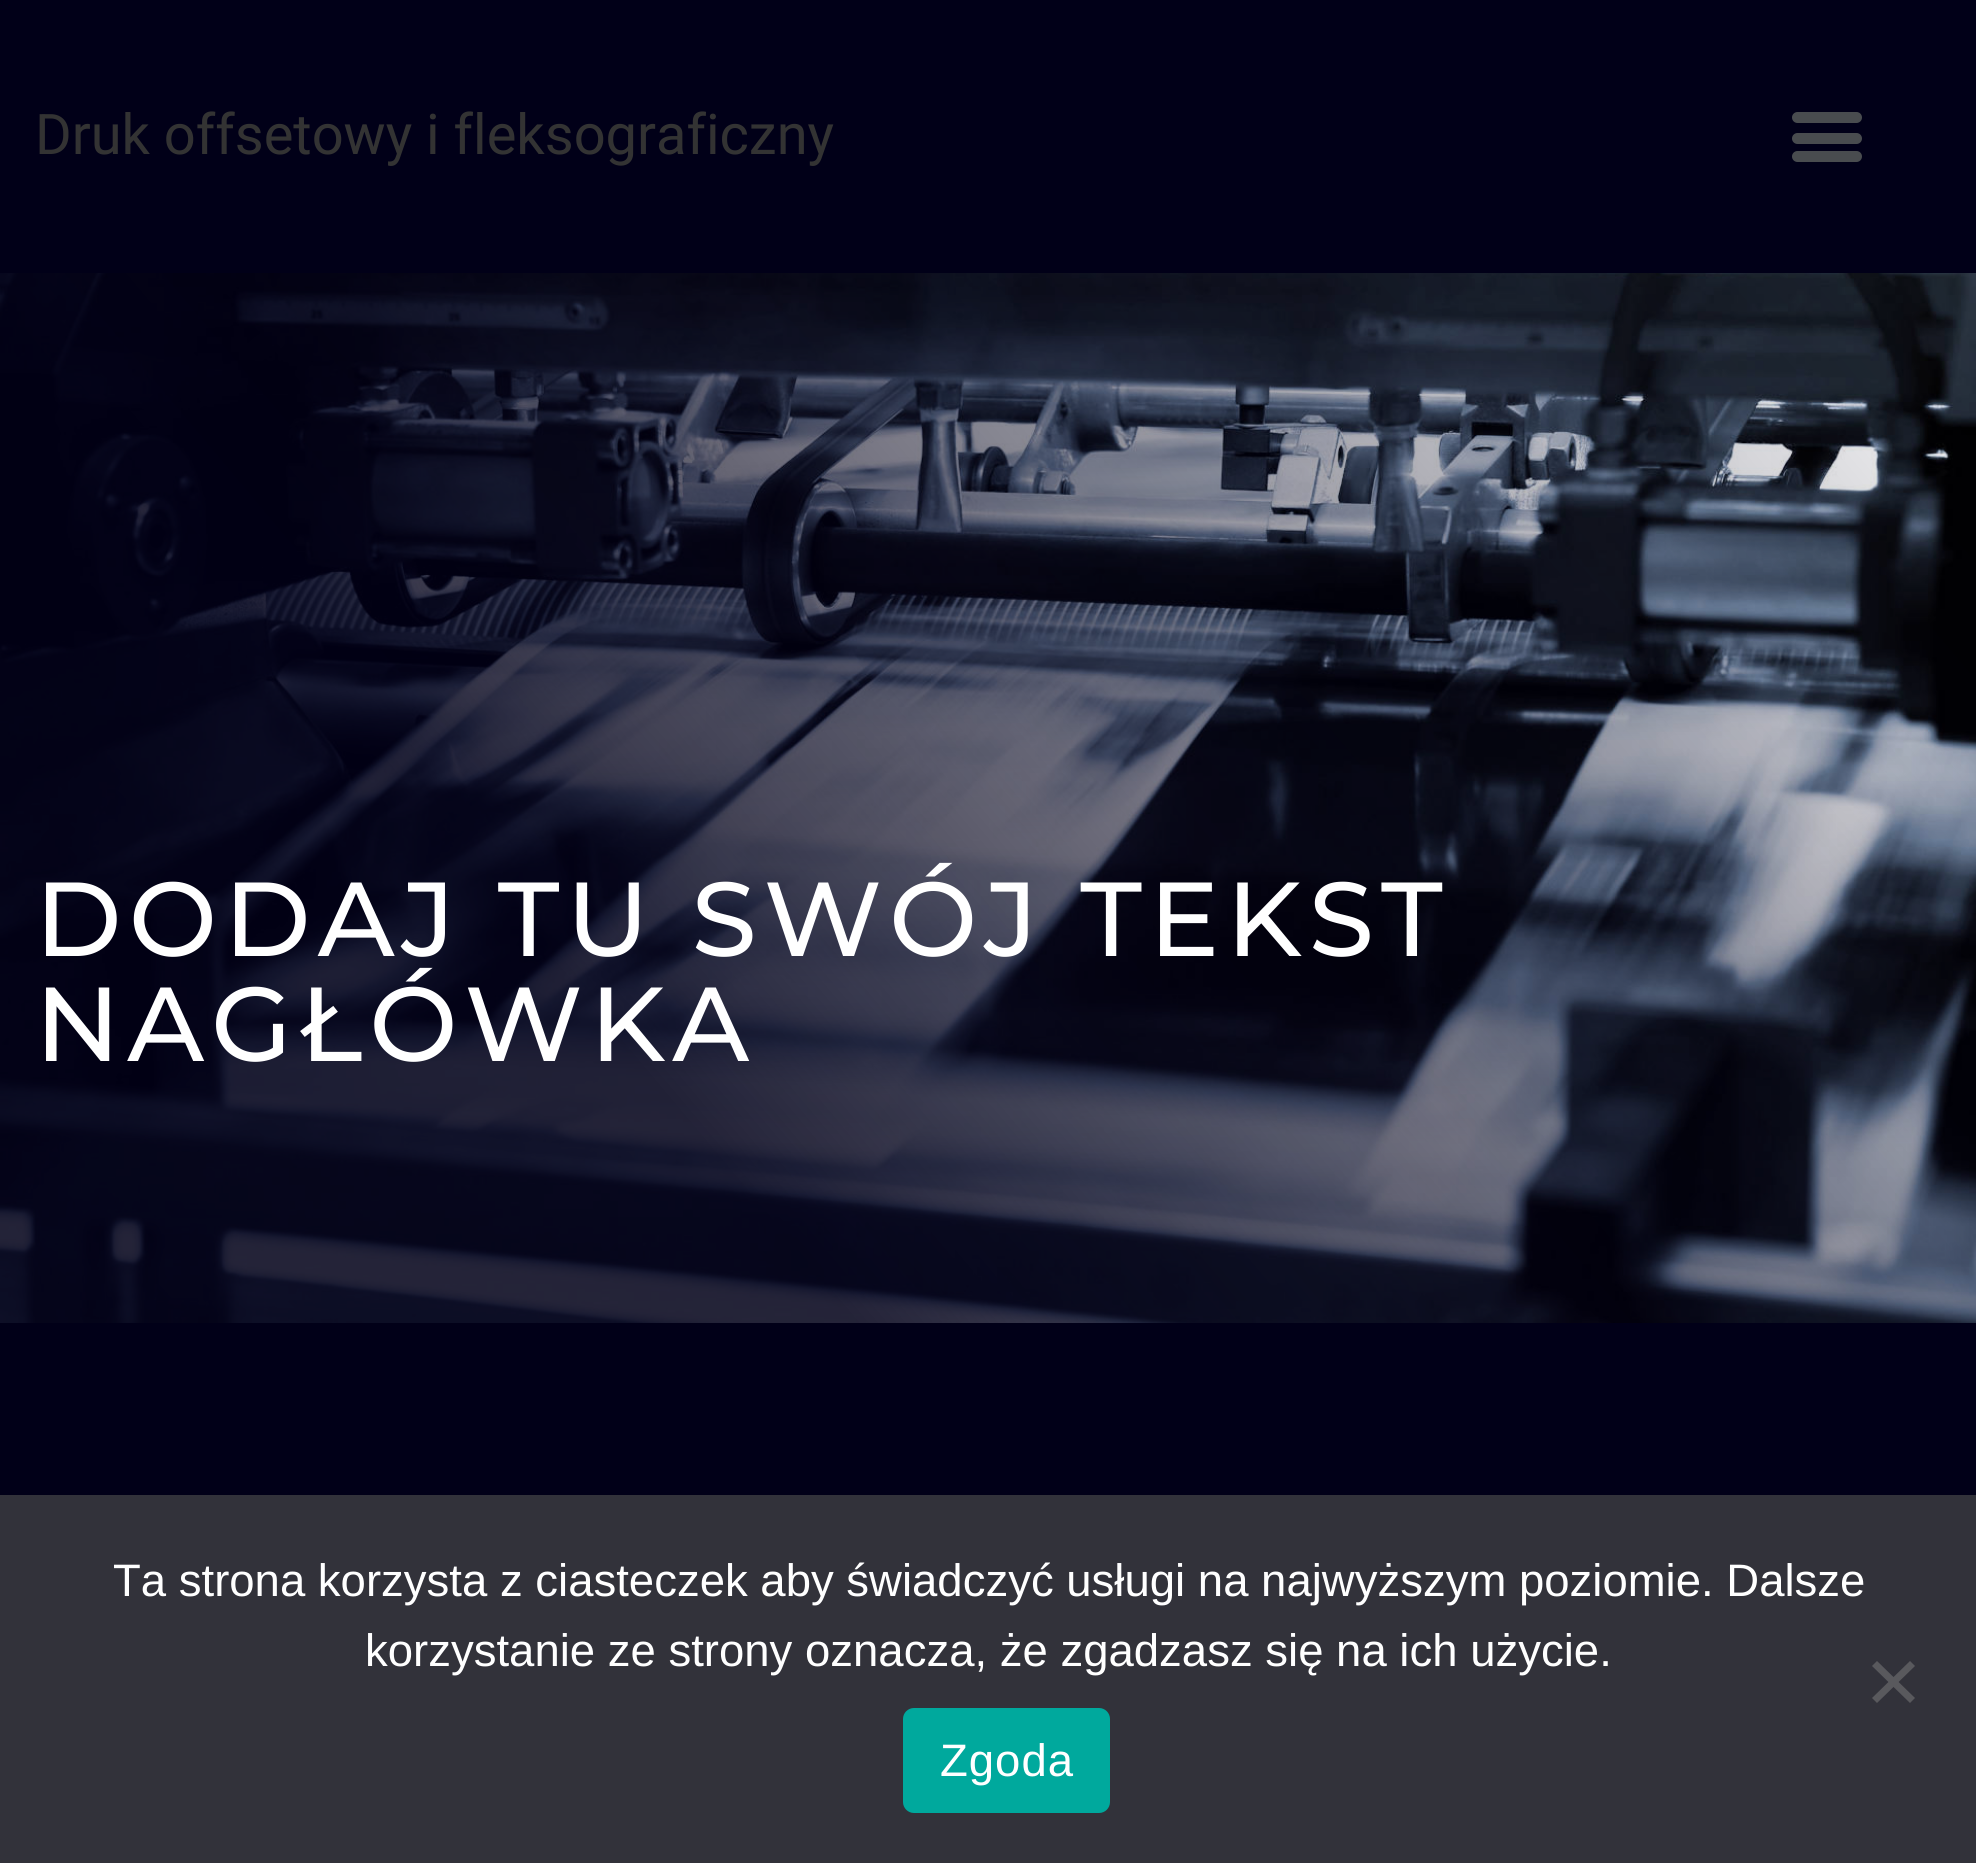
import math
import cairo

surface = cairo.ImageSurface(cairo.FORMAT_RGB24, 1976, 1863)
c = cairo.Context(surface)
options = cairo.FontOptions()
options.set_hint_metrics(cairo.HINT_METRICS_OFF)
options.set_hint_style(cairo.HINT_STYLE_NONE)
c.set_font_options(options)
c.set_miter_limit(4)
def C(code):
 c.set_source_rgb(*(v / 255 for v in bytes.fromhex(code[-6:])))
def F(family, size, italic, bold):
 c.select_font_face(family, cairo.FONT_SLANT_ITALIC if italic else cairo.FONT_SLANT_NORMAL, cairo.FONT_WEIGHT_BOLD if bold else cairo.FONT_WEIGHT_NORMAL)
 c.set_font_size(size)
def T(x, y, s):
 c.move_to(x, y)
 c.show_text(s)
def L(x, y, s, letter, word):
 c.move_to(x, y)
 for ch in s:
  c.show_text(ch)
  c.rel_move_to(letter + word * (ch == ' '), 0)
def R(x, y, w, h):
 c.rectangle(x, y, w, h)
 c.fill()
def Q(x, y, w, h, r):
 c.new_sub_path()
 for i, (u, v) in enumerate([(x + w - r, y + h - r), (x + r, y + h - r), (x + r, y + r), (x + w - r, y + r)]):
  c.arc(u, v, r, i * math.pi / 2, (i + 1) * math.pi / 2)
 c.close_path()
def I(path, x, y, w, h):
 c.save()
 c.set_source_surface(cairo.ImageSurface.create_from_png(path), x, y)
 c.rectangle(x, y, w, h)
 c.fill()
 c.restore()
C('010018')
c.paint()
F('Roboto',56,0,0)
C('333333')
T(35,154,'Druk offsetowy i fleksograficzny')
C('494c4f')
Q(1792,133,70,11,5.5)
c.fill()
Q(1792,112,70,11,5.5)
c.fill()
Q(1792,151,70,11,5.5)
c.fill()
I('1.png',0,273,1976,1050)
F('Montserrat Medium',105,0,0)
C('ffffff')
L(35,956,'DODAJ TU SWÓJ TEKST',7,0)
L(35,1061,'NAGŁÓWKA',7,0)
C('32323a')
R(0,1495,1976,368)
F('Liberation Sans',45.5,0,0)
C('ffffff')
T(113,1596,'Ta strona korzysta z ciasteczek aby świadczyć usługi na najwyższym poziomie. Dalsze')
T(365,1666,'korzystanie ze strony oznacza, że zgadzasz się na ich użycie.')
C('59595d')
c.new_path()
c.move_to(1910,1661)
c.line_to(1915,1666)
c.line_to(1877,1703)
c.line_to(1872,1698)
c.close_path()
c.fill()
c.new_path()
c.move_to(1872,1666)
c.line_to(1877,1661)
c.line_to(1915,1698)
c.line_to(1910,1703)
c.close_path()
c.fill()
C('00a99d')
Q(903,1708,207,105,11)
c.fill()
C('ffffff')
L(940,1776,'Zgoda',1,0)
surface.write_to_png('o.png')
